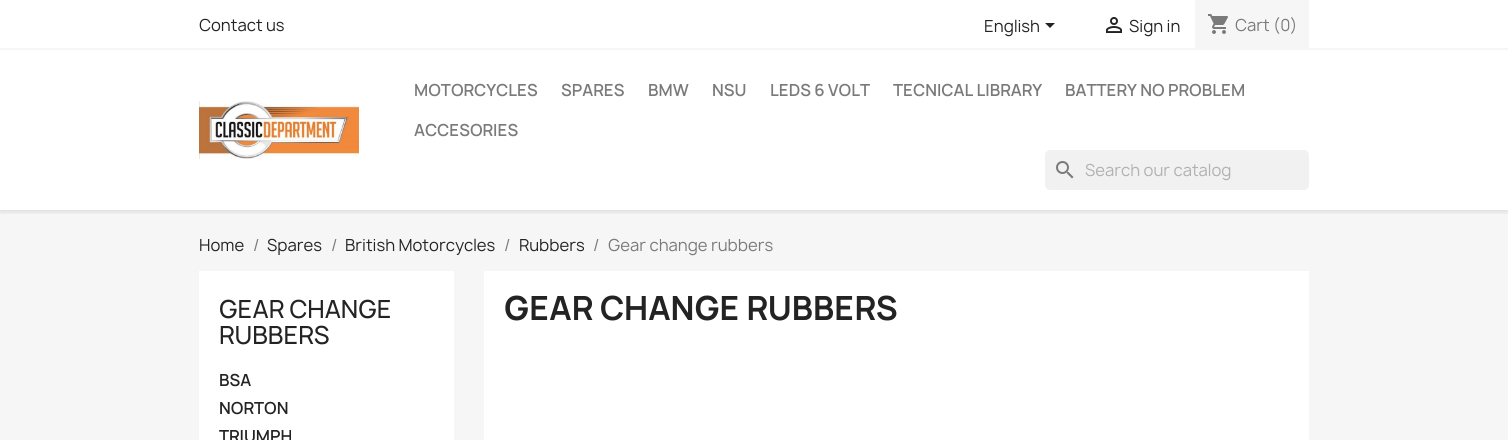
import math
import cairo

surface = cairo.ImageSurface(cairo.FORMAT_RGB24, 1508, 440)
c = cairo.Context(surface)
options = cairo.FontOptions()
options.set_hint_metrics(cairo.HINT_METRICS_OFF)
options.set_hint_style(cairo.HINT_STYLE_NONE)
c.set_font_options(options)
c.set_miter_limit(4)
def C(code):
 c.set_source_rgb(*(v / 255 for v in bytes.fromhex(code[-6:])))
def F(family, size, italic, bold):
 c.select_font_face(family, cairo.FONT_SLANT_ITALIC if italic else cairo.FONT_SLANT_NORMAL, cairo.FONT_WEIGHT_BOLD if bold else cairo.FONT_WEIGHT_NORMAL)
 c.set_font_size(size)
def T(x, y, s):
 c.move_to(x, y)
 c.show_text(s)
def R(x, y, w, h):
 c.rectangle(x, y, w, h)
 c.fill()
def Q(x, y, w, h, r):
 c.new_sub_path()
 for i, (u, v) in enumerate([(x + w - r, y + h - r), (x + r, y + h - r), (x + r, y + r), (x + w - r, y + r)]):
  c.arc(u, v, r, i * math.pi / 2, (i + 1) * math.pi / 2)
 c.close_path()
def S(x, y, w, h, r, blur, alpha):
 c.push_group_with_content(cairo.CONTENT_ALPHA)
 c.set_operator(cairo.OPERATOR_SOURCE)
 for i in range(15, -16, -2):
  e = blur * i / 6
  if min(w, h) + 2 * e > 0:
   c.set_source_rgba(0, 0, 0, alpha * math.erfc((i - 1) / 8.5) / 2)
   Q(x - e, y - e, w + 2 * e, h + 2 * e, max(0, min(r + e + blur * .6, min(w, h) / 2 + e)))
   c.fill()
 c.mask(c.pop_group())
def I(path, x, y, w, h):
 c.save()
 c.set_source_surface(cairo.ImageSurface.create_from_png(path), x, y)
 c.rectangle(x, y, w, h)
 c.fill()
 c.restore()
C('ffffff')
c.paint()
C('f6f6f6')
R(0,210,1508,230)
c.save()
c.rectangle(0,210,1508,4)
c.clip()
C('000000')
S(0,2,1508,210,0,2.5,.11)
c.restore()
R(0,48,1508,2)
F('Manrope',16,0,0)
C('232323')
T(199,31,'Contact us')
T(984,32,'English')
c.new_path()
c.move_to(1045,23)
c.line_to(1055,23)
c.line_to(1050,28)
c.close_path()
c.fill()
I('1.png',1106,17,16,16)
T(1129,32,'Sign in')
C('f6f6f6')
R(1195,0,114,48)
I('2.png',1208,14,20,20)
C('7a7a7a')
T(1235,31,'Cart (0)')
I('3.png',199,101,160,58)
F('Manrope SemiBold',16,0,0)
T(414,96,'MOTORCYCLES')
T(561,96,'SPARES')
T(648,96,'BMW')
T(712,96,'NSU')
T(770,96,'LEDS 6 VOLT')
T(893,96,'TECNICAL LIBRARY')
T(1065,96,'BATTERY NO PROBLEM')
T(414,136,'ACCESORIES')
C('f1f1f1')
Q(1045,150,264,40,5)
c.fill()
I('4.png',1056,161,18,18)
F('Manrope',16,0,0)
C('b1b1b1')
T(1085,176,'Search our catalog')
C('232323')
T(199,251,'Home')
C('7a7a7a')
T(253,251,'/')
C('232323')
T(267,251,'Spares')
C('7a7a7a')
T(331,251,'/')
C('232323')
T(345,251,'British Motorcycles')
C('7a7a7a')
T(504,251,'/')
C('232323')
T(519,251,'Rubbers')
C('7a7a7a')
T(593,251,'/')
T(608,251,'Gear change rubbers')
C('ffffff')
R(199,271,255,169)
F('Manrope Medium',24,0,0)
C('232323')
T(219,318,'GEAR CHANGE')
T(219,344,'RUBBERS')
F('Manrope SemiBold',16,0,0)
T(219,386,'BSA')
T(219,414,'NORTON')
T(219,442,'TRIUMPH')
C('ffffff')
R(484,271,825,169)
F('Manrope',32,0,1)
C('232323')
T(504,320,'GEAR CHANGE RUBBERS')
surface.write_to_png('o.png')
